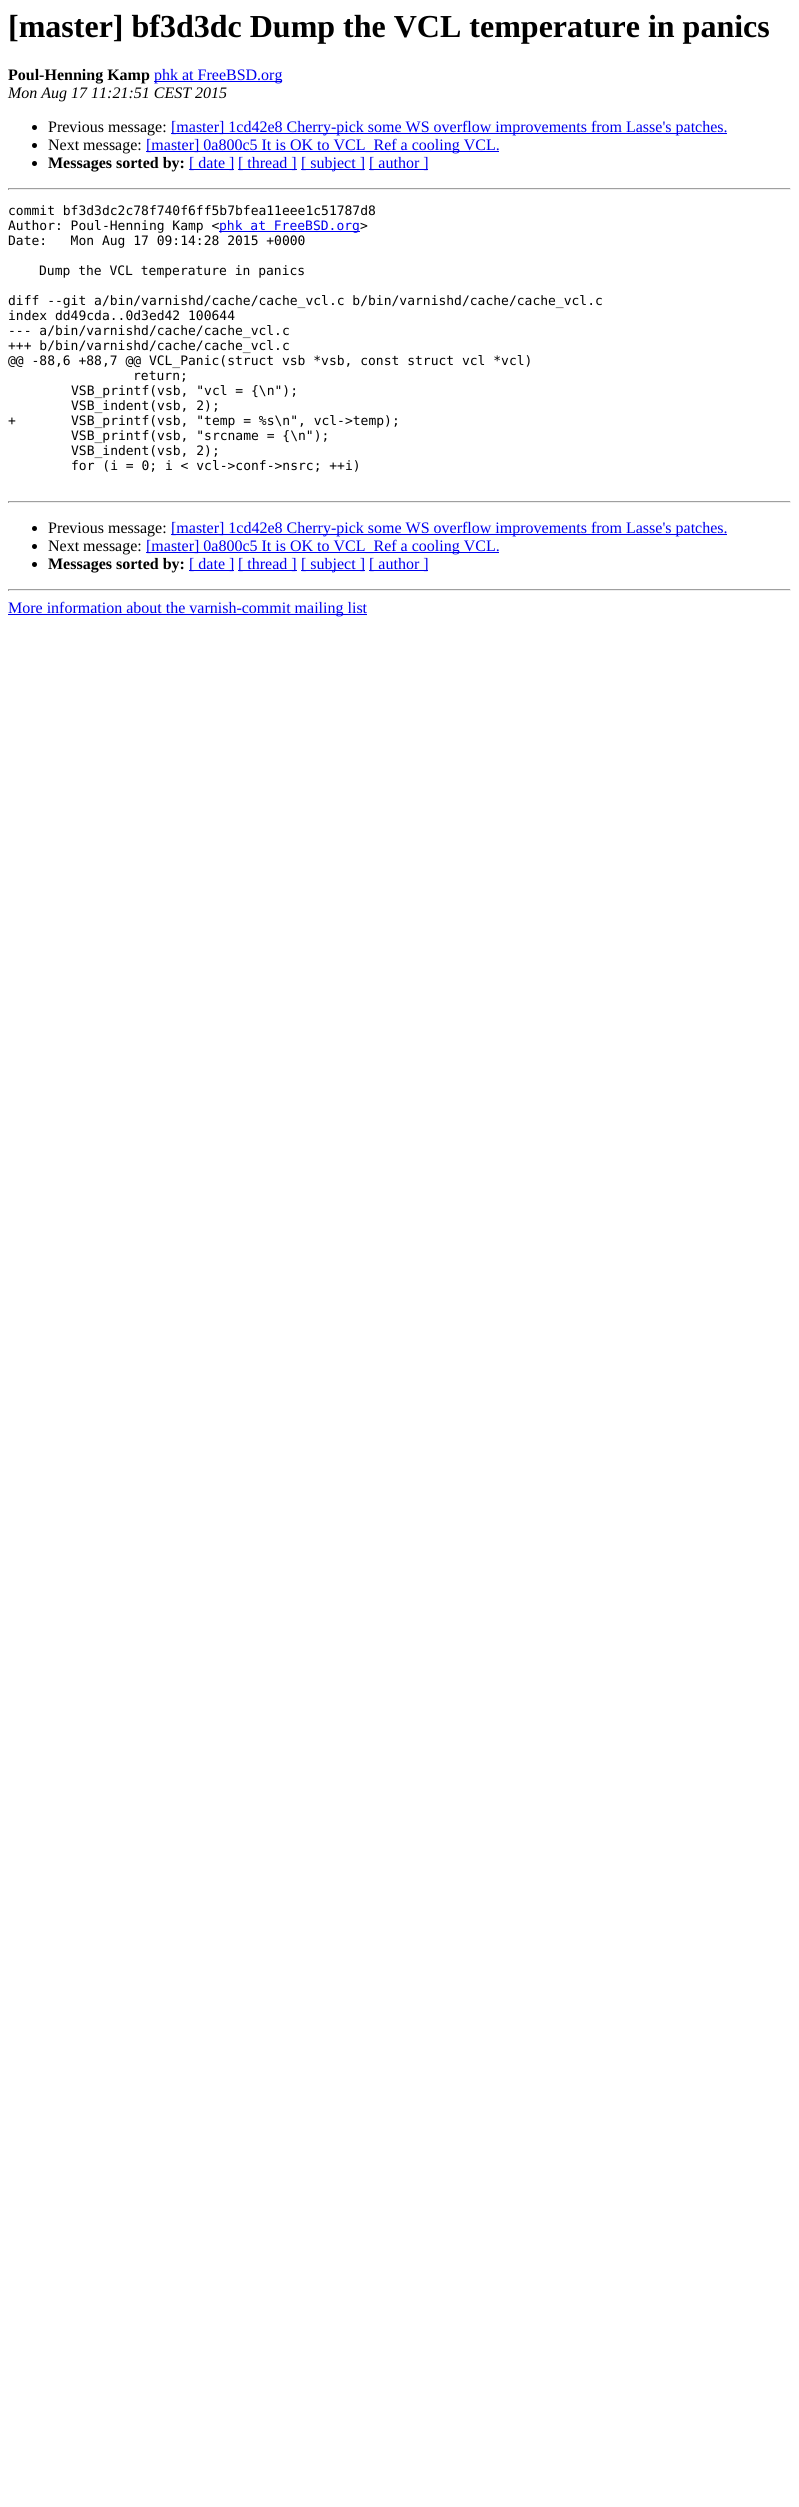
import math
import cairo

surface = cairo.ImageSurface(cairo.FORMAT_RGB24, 799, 2507)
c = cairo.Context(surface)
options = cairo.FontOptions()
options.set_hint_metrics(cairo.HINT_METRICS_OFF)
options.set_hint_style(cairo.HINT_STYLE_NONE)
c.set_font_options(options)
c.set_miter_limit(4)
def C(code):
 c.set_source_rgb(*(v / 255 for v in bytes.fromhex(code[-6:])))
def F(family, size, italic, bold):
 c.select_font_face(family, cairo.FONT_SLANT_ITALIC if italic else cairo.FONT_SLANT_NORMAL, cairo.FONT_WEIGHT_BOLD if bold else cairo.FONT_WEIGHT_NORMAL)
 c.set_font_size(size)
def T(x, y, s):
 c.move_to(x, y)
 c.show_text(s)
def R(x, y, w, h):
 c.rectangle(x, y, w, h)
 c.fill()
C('ffffff')
c.paint()
F('Liberation Serif',32,0,1)
C('000000')
T(8,37,'[master] bf3d3dc Dump the VCL temperature in panics')
F('Liberation Serif',16,0,1)
T(8,80,'Poul-Henning Kamp')
C('0000ee')
R(154,81,128,1)
F('Liberation Serif',16,0,0)
T(154,80,'phk at FreeBSD.org')
F('Liberation Serif',16,1,0)
C('000000')
T(8,98,'Mon Aug 17 11:21:51 CEST 2015')
c.new_path()
c.arc(34.5,127.5,2.5,0,2 * math.pi)
c.fill()
F('Liberation Serif',16,0,0)
T(48,132,'Previous message:')
C('0000ee')
R(171,133,556,1)
T(171,132,'[master] 1cd42e8 Cherry-pick some WS overflow improvements from Lasse\'s patches.')
C('000000')
c.new_path()
c.arc(34.5,145.5,2.5,0,2 * math.pi)
c.fill()
T(48,150,'Next message:')
C('0000ee')
R(146,151,353,1)
T(146,150,'[master] 0a800c5 It is OK to VCL_Ref a cooling VCL.')
C('000000')
c.new_path()
c.arc(34.5,163.5,2.5,0,2 * math.pi)
c.fill()
F('Liberation Serif',16,0,1)
T(48,168,'Messages sorted by:')
C('0000ee')
R(189,169,45,1)
F('Liberation Serif',16,0,0)
T(189,168,'[ date ]')
R(238,169,59,1)
T(238,168,'[ thread ]')
R(301,169,64,1)
T(301,168,'[ subject ]')
R(369,169,59,1)
T(369,168,'[ author ]')
C('9f9f9f')
R(8,188,783,1)
C('eeeeee')
R(790,188,1,2)
R(8,189,783,1)
C('9f9f9f')
R(8,188,1,2)
F('DejaVu Sans Mono',13,0,0)
C('000000')
T(8,215,'commit bf3d3dc2c78f740f6ff5b7bfea11eee1c51787d8')
T(8,230,'Author: Poul-Henning Kamp <')
C('0000ee')
R(219,231,141,1)
T(219,230,'phk at FreeBSD.org')
C('000000')
T(360,230,'>')
T(8,245,'Date:   Mon Aug 17 09:14:28 2015 +0000')
T(39,275,'Dump the VCL temperature in panics')
T(8,305,'diff --git a/bin/varnishd/cache/cache_vcl.c b/bin/varnishd/cache/cache_vcl.c')
T(8,320,'index dd49cda..0d3ed42 100644')
T(8,335,'--- a/bin/varnishd/cache/cache_vcl.c')
T(8,350,'+++ b/bin/varnishd/cache/cache_vcl.c')
T(8,365,'@@ -88,6 +88,7 @@ VCL_Panic(struct vsb *vsb, const struct vcl *vcl)')
T(133,380,'return;')
T(71,395,'VSB_printf(vsb, "vcl = {\\n");')
T(71,410,'VSB_indent(vsb, 2);')
T(8,425,'+')
T(71,425,'VSB_printf(vsb, "temp = %s\\n", vcl->temp);')
T(71,440,'VSB_printf(vsb, "srcname = {\\n");')
T(71,455,'VSB_indent(vsb, 2);')
T(71,470,'for (i = 0; i < vcl->conf->nsrc; ++i)')
C('9f9f9f')
R(8,501,783,1)
C('eeeeee')
R(790,501,1,2)
R(8,502,783,1)
C('9f9f9f')
R(8,501,1,2)
C('000000')
c.new_path()
c.arc(34.5,528.5,2.5,0,2 * math.pi)
c.fill()
F('Liberation Serif',16,0,0)
T(48,533,'Previous message:')
C('0000ee')
R(171,534,556,1)
T(171,533,'[master] 1cd42e8 Cherry-pick some WS overflow improvements from Lasse\'s patches.')
C('000000')
c.new_path()
c.arc(34.5,546.5,2.5,0,2 * math.pi)
c.fill()
T(48,551,'Next message:')
C('0000ee')
R(146,552,353,1)
T(146,551,'[master] 0a800c5 It is OK to VCL_Ref a cooling VCL.')
C('000000')
c.new_path()
c.arc(34.5,564.5,2.5,0,2 * math.pi)
c.fill()
F('Liberation Serif',16,0,1)
T(48,569,'Messages sorted by:')
C('0000ee')
R(189,570,45,1)
F('Liberation Serif',16,0,0)
T(189,569,'[ date ]')
R(238,570,59,1)
T(238,569,'[ thread ]')
R(301,570,64,1)
T(301,569,'[ subject ]')
R(369,570,59,1)
T(369,569,'[ author ]')
C('9f9f9f')
R(8,589,783,1)
C('eeeeee')
R(790,589,1,2)
R(8,590,783,1)
C('9f9f9f')
R(8,589,1,2)
C('0000ee')
R(8,614,359,1)
T(8,613,'More information about the varnish-commit mailing list')
surface.write_to_png('o.png')
